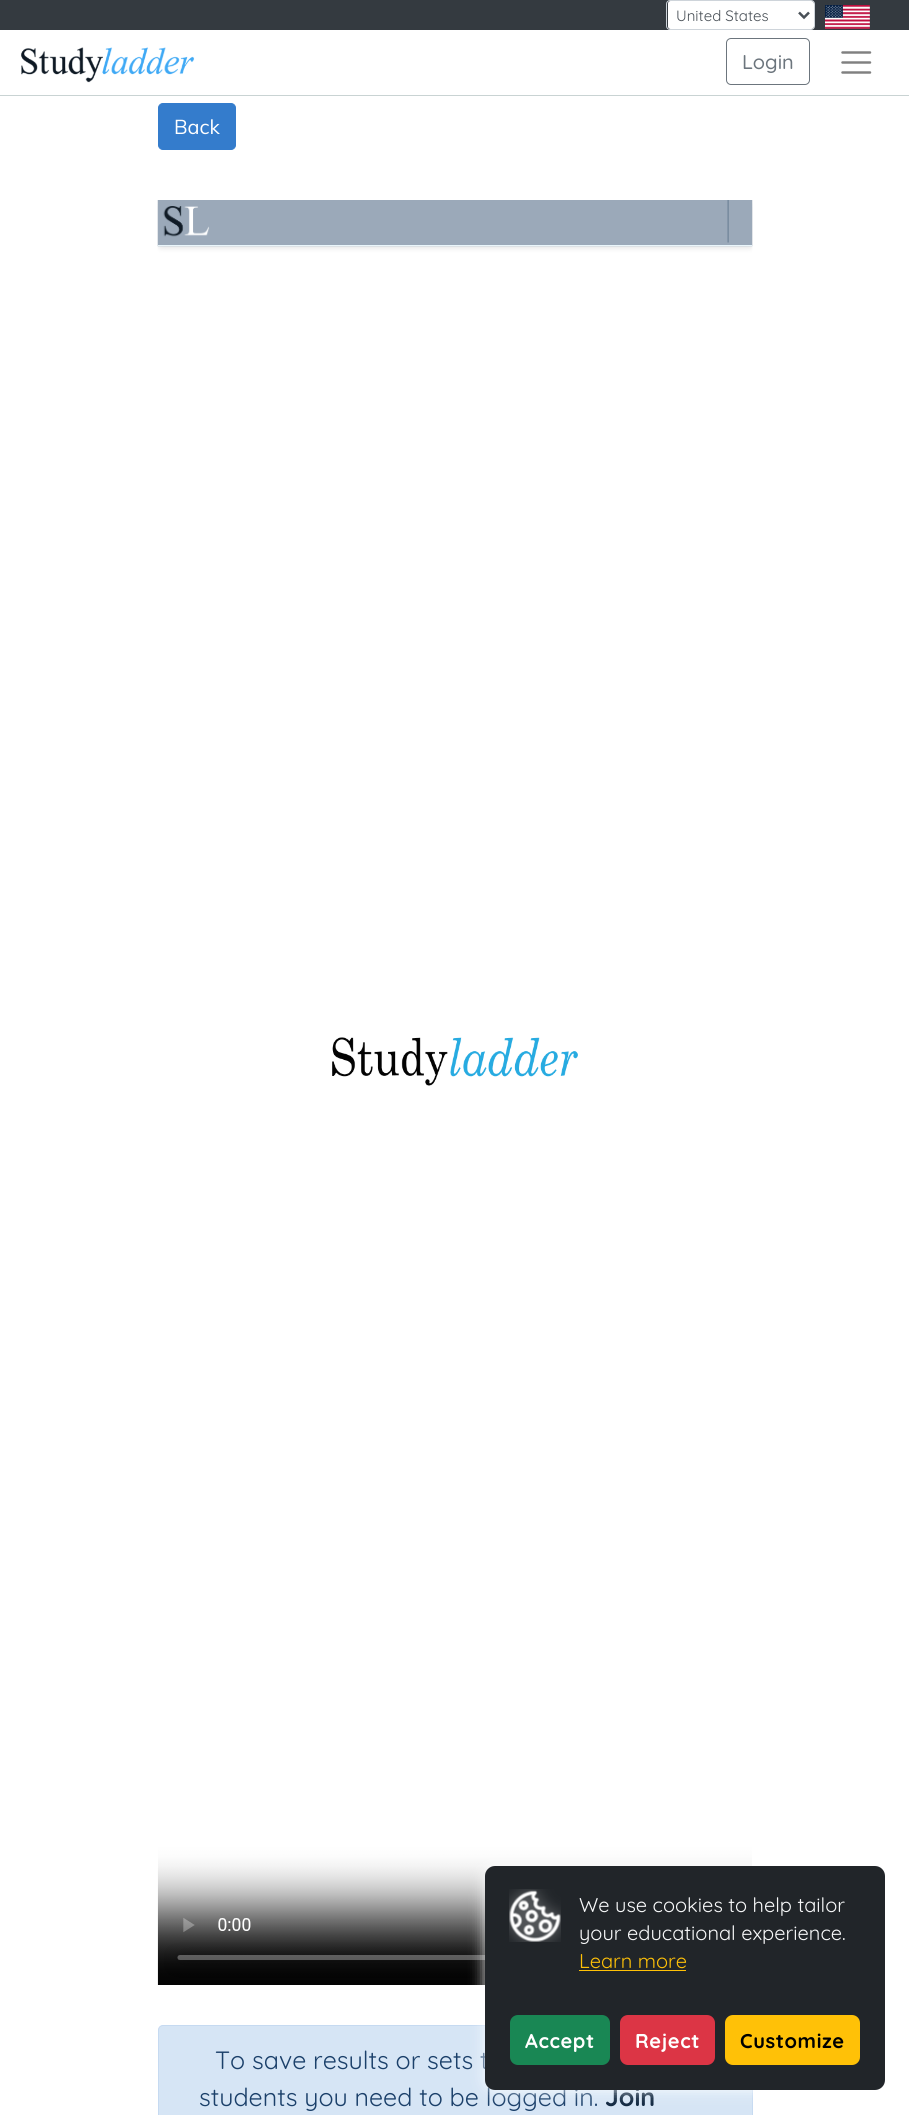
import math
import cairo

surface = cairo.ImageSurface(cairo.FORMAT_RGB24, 909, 2115)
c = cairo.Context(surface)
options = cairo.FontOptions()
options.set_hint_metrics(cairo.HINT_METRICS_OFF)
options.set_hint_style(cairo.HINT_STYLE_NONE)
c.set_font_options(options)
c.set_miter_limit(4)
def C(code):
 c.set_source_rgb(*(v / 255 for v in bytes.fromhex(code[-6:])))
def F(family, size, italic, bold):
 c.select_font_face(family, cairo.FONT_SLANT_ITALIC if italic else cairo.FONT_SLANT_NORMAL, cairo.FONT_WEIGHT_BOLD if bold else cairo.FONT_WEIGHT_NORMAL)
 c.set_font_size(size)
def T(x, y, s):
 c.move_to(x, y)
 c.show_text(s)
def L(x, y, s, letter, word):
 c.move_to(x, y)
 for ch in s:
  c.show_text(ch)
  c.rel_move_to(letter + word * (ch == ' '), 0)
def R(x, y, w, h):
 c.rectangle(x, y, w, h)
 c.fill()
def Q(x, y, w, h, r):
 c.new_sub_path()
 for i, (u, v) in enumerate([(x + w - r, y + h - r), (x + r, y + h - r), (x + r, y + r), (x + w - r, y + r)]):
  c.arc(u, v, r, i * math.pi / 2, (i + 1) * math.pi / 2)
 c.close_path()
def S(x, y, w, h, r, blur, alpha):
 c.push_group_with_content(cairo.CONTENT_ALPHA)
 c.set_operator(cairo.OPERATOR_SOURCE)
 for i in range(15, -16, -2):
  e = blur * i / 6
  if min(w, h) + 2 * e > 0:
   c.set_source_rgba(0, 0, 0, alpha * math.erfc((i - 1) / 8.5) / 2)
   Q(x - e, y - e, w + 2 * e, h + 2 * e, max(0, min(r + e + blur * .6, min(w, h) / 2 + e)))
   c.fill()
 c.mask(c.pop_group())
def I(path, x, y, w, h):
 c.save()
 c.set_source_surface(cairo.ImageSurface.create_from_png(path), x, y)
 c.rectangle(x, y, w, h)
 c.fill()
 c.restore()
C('ffffff')
c.paint()
C('c9d3d3')
R(0,95,909,1)
C('343a40')
R(0,0,909,30)
C('ffffff')
Q(668,1,146,28,2.5)
c.fill()
Q(666.5,.5,148,29,3.5)
C('ced4da')
c.set_line_width(1)
c.stroke()
c.new_path()
c.move_to(799,12.5)
c.line_to(804,17.5)
c.line_to(809,12.5)
C('495057')
c.set_line_width(2.5)
c.stroke()
F('Quicksand',15,0,0)
T(676,21,'United States')
I('1.png',825,5,45,24)
I('2.png',21,47,174,36)
Q(726.5,38.5,83,46,4.5)
C('6c757d')
c.set_line_width(1)
c.stroke()
F('Quicksand Medium',20,0,0)
T(742,69,'Login')
c.new_path()
c.move_to(842.5,52.5)
c.line_to(870,52.5)
c.move_to(842.5,62.5)
c.line_to(870,62.5)
c.move_to(842.5,72.5)
c.line_to(870,72.5)
C('808080')
c.set_line_width(2.5)
c.set_line_cap(cairo.LINE_CAP_ROUND)
c.stroke()
C('347ccc')
Q(158.5,103.5,77,46,4.5)
c.fill_preserve()
c.set_line_width(1)
c.set_line_cap(cairo.LINE_CAP_BUTT)
c.stroke()
F('Muli',20,0,0)
C('ffffff')
T(174,134,'Back')
I('3.png',157,200,596,1785)
C('d6e5f5')
Q(158.5,2025.5,594,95,4.5)
c.fill_preserve()
C('c6daf1')
c.stroke()
F('Quicksand',25,0,0)
C('1b406a')
T(215,2069,'To save results or sets t')
T(199,2106,'students you need to be logged in.')
F('Quicksand',25,0,1)
C('112841')
T(605,2106,'Join')
C('ffffff')
S(486,1868,398,221,9,7.5,1)
C('212529')
Q(485,1866,400,224,10)
c.fill()
I('4.png',509,1889,52,53)
F('Quicksand',20,0,0)
C('f8f9fa')
T(579,1912,'We use cookies to help tailor')
T(579,1940,'your educational experience.')
C('ffc107')
T(579,1968,'Learn more')
R(579,1970,107,1)
C('198754')
Q(510,2015,100,50,8)
c.fill()
F('Quicksand',20,0,1)
C('ffffff')
L(525,2048,'Accept',.6,0)
C('dc3545')
Q(620,2015,95,50,8)
c.fill()
C('ffffff')
L(635,2048,'Reject',.6,0)
C('ffc107')
Q(725,2015,135,50,8)
c.fill()
C('000000')
L(740,2048,'Customize',.6,0)
surface.write_to_png('o.png')
